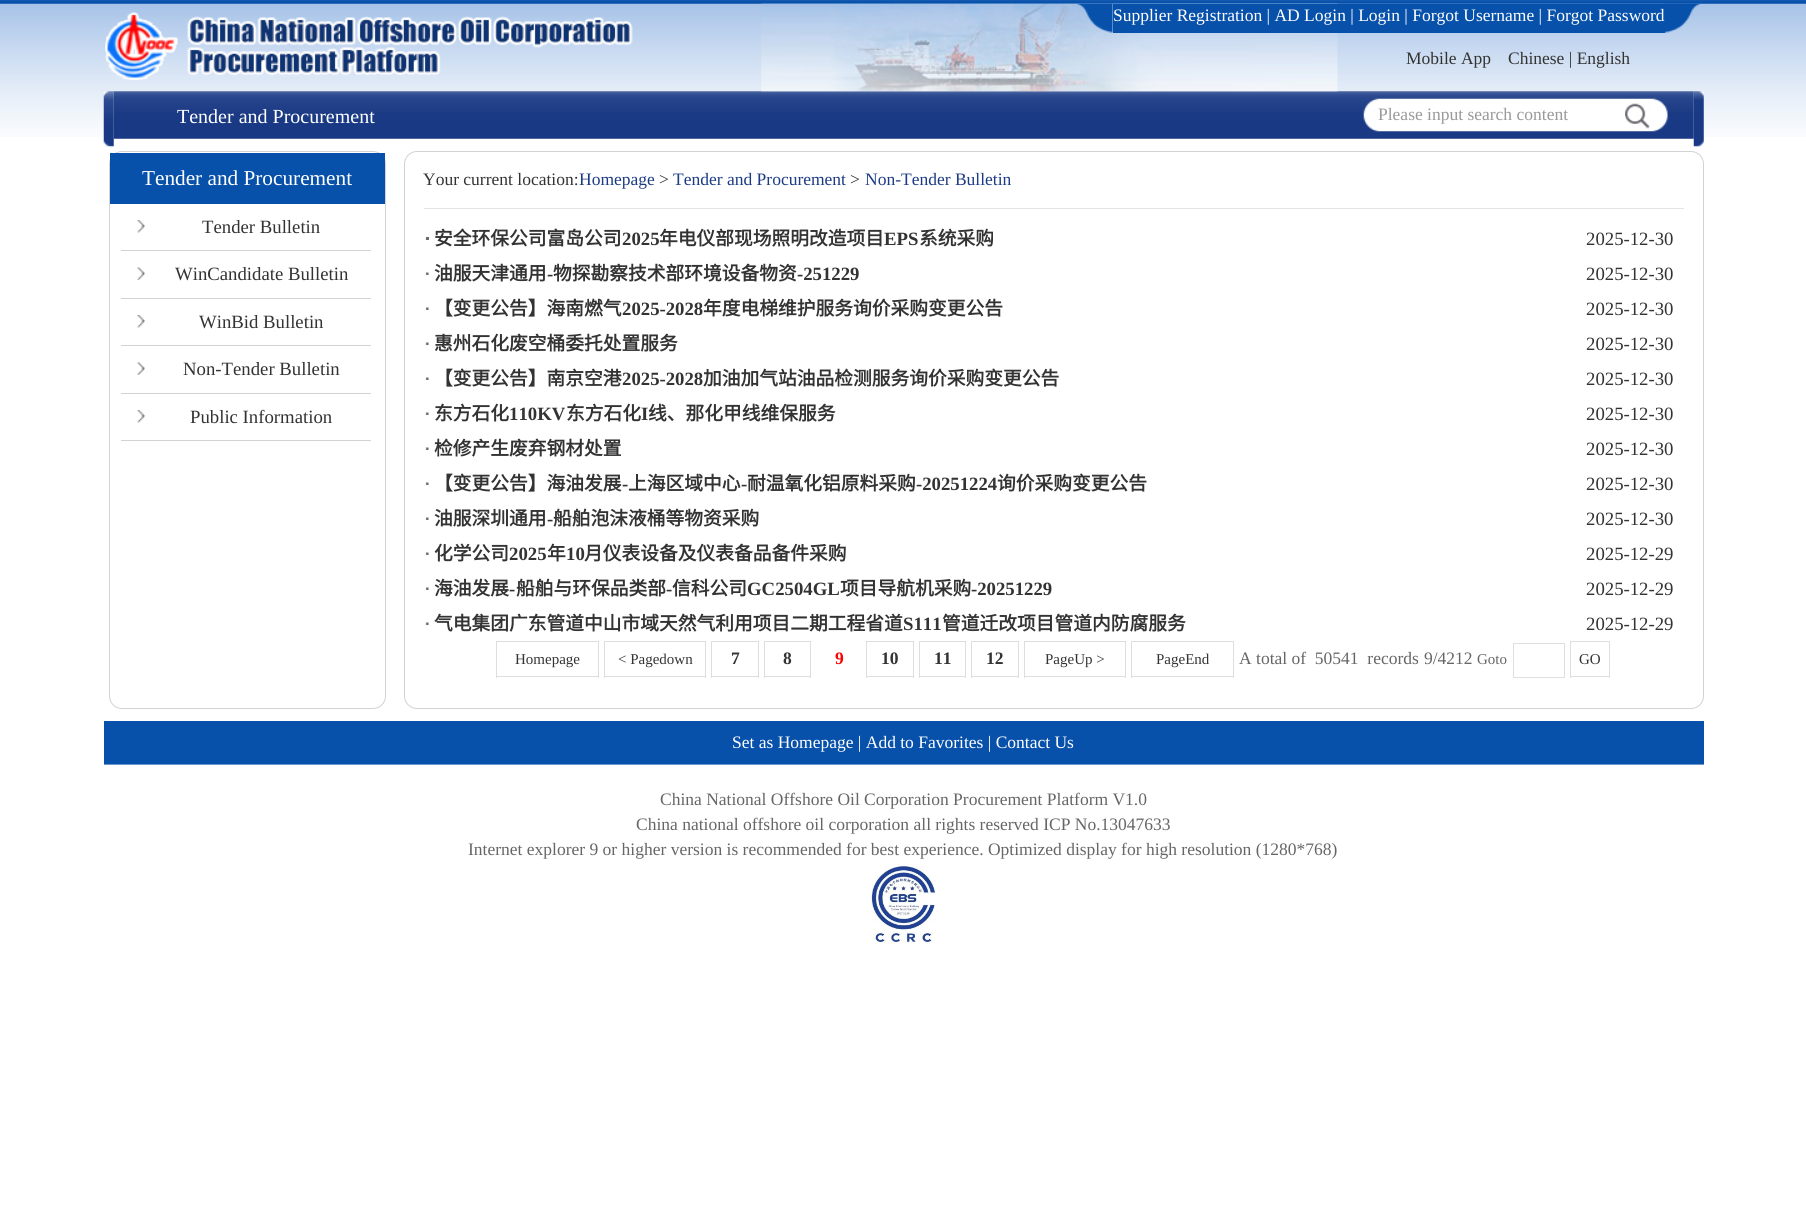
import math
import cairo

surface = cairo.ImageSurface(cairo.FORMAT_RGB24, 1806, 1206)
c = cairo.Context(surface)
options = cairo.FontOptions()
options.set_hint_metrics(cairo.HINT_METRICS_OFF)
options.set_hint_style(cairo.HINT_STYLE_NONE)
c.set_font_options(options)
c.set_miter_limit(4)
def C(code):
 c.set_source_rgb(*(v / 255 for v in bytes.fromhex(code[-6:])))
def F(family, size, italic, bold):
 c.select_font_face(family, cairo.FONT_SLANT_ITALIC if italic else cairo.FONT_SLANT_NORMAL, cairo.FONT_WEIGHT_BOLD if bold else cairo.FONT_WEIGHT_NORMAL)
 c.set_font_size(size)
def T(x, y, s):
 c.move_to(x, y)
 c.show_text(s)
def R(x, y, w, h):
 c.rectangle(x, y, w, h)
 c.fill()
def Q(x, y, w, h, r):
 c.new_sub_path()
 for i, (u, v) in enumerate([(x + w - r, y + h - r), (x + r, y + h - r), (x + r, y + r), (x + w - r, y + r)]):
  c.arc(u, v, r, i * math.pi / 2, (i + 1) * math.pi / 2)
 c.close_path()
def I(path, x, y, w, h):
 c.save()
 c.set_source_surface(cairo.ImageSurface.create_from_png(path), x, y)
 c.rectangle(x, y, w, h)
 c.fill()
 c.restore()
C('ffffff')
c.paint()
I('1.png',0,0,1806,137)
I('6.png',103,91,11,56)
I('7.png',113,91,1581,48)
I('2.png',761,3,577,89)
I('3.png',105,12,528,68)
I('4.png',1077,3,36,30)
C('0751ab')
R(1113,4,552,29)
F('Liberation Serif',17.5,0,0)
C('ffffff')
T(1113,21,'Supplier Registration | AD Login | Login | Forgot Username | Forgot Password')
I('5.png',1665,3,35,30)
C('333333')
T(1406,64,'Mobile App')
T(1508,64,'Chinese | English')
F('Liberation Serif',20,0,0)
C('ffffff')
T(177,123,'Tender and Procurement')
I('8.png',1363,98,305,34)
F('Liberation Serif',17.5,0,0)
C('999999')
T(1378,120,'Please input search content')
I('9.png',1625,103,25,26)
I('10.png',1693,91,11,56)
Q(109.5,151.5,276,557,12.5)
C('d2d2d2')
c.set_line_width(1)
c.stroke()
C('0751ab')
R(110,153,275,51)
F('Liberation Serif',21.25,0,0)
C('ffffff')
T(142,185,'Tender and Procurement')
C('d2d2d2')
R(121,250,250,1)
I('11.png',137,220,8,13)
F('Liberation Serif',18.75,0,0)
C('333333')
T(202,233,'Tender Bulletin')
C('d2d2d2')
R(121,298,250,1)
I('12.png',137,267,8,13)
C('333333')
T(175,280,'WinCandidate Bulletin')
C('d2d2d2')
R(121,345,250,1)
I('11.png',137,315,8,13)
C('333333')
T(199,328,'WinBid Bulletin')
C('d2d2d2')
R(121,393,250,1)
I('12.png',137,362,8,13)
C('333333')
T(183,375,'Non-Tender Bulletin')
C('d2d2d2')
R(121,440,250,1)
I('11.png',137,410,8,13)
C('333333')
T(190,423,'Public Information')
Q(404.5,151.5,1299,557,12.5)
C('d2d2d2')
c.stroke()
C('e4e4e4')
R(424,208,1260,1)
F('Liberation Serif',17.5,0,0)
C('333333')
T(423,185,'Your current location:')
C('1c3b85')
T(579,185,'Homepage')
C('333333')
T(659,185,'>')
C('1c3b85')
T(673,185,'Tender and Procurement')
C('333333')
T(850,185,'>')
C('1c3b85')
T(865,185,'Non-Tender Bulletin')
I('13.png',425,237,1,3)
C('6c6c6c')
R(426,237,3,3)
F('Noto Sans CJK SC',18.75,0,1)
C('333333')
T(434,245,'安全环保公司富岛公司')
F('Liberation Serif',18.75,0,1)
T(622,245,'2025')
F('Noto Sans CJK SC',18.75,0,1)
T(659,245,'年电仪部现场照明改造项目')
F('Liberation Serif',18.75,0,1)
T(884,245,'EPS')
F('Noto Sans CJK SC',18.75,0,1)
T(919,245,'系统采购')
F('Liberation Serif',18.75,0,0)
T(1586,245,'2025-12-30')
I('14.png',425,272,4,3)
F('Noto Sans CJK SC',18.75,0,1)
T(434,280,'油服天津通用')
F('Liberation Serif',18.75,0,1)
T(547,280,'-')
F('Noto Sans CJK SC',18.75,0,1)
T(553,280,'物探勘察技术部环境设备物资')
F('Liberation Serif',18.75,0,1)
T(797,280,'-251229')
F('Liberation Serif',18.75,0,0)
T(1586,280,'2025-12-30')
I('14.png',425,307,4,3)
F('Noto Sans CJK SC',18.75,0,1)
T(434,315,'【变更公告】海南燃气')
F('Liberation Serif',18.75,0,1)
T(622,315,'2025-2028')
F('Noto Sans CJK SC',18.75,0,1)
T(703,315,'年度电梯维护服务询价采购变更公告')
F('Liberation Serif',18.75,0,0)
T(1586,315,'2025-12-30')
I('14.png',425,342,4,3)
F('Noto Sans CJK SC',18.75,0,1)
T(434,350,'惠州石化废空桶委托处置服务')
F('Liberation Serif',18.75,0,0)
T(1586,350,'2025-12-30')
I('14.png',425,377,4,3)
F('Noto Sans CJK SC',18.75,0,1)
T(434,385,'【变更公告】南京空港')
F('Liberation Serif',18.75,0,1)
T(622,385,'2025-2028')
F('Noto Sans CJK SC',18.75,0,1)
T(703,385,'加油加气站油品检测服务询价采购变更公告')
F('Liberation Serif',18.75,0,0)
T(1586,385,'2025-12-30')
I('14.png',425,412,4,3)
F('Noto Sans CJK SC',18.75,0,1)
T(434,420,'东方石化')
F('Liberation Serif',18.75,0,1)
T(509,420,'110KV')
F('Noto Sans CJK SC',18.75,0,1)
T(566,420,'东方石化')
F('Liberation Serif',18.75,0,1)
T(641,420,'I')
F('Noto Sans CJK SC',18.75,0,1)
T(648,420,'线、那化甲线维保服务')
F('Liberation Serif',18.75,0,0)
T(1586,420,'2025-12-30')
I('14.png',425,447,4,3)
F('Noto Sans CJK SC',18.75,0,1)
T(434,455,'检修产生废弃钢材处置')
F('Liberation Serif',18.75,0,0)
T(1586,455,'2025-12-30')
I('14.png',425,482,4,3)
F('Noto Sans CJK SC',18.75,0,1)
T(434,490,'【变更公告】海油发展')
F('Liberation Serif',18.75,0,1)
T(622,490,'-')
F('Noto Sans CJK SC',18.75,0,1)
T(628,490,'上海区域中心')
F('Liberation Serif',18.75,0,1)
T(741,490,'-')
F('Noto Sans CJK SC',18.75,0,1)
T(747,490,'耐温氧化铝原料采购')
F('Liberation Serif',18.75,0,1)
T(916,490,'-20251224')
F('Noto Sans CJK SC',18.75,0,1)
T(997,490,'询价采购变更公告')
F('Liberation Serif',18.75,0,0)
T(1586,490,'2025-12-30')
I('14.png',425,517,4,3)
F('Noto Sans CJK SC',18.75,0,1)
T(434,525,'油服深圳通用')
F('Liberation Serif',18.75,0,1)
T(547,525,'-')
F('Noto Sans CJK SC',18.75,0,1)
T(553,525,'船舶泡沫液桶等物资采购')
F('Liberation Serif',18.75,0,0)
T(1586,525,'2025-12-30')
I('14.png',425,552,4,3)
F('Noto Sans CJK SC',18.75,0,1)
T(434,560,'化学公司')
F('Liberation Serif',18.75,0,1)
T(509,560,'2025')
F('Noto Sans CJK SC',18.75,0,1)
T(547,560,'年')
F('Liberation Serif',18.75,0,1)
T(566,560,'10')
F('Noto Sans CJK SC',18.75,0,1)
T(584,560,'月仪表设备及仪表备品备件采购')
F('Liberation Serif',18.75,0,0)
T(1586,560,'2025-12-29')
I('14.png',425,587,4,3)
F('Noto Sans CJK SC',18.75,0,1)
T(434,595,'海油发展')
F('Liberation Serif',18.75,0,1)
T(509,595,'-')
F('Noto Sans CJK SC',18.75,0,1)
T(516,595,'船舶与环保品类部')
F('Liberation Serif',18.75,0,1)
T(666,595,'-')
F('Noto Sans CJK SC',18.75,0,1)
T(672,595,'信科公司')
F('Liberation Serif',18.75,0,1)
T(747,595,'GC2504GL')
F('Noto Sans CJK SC',18.75,0,1)
T(840,595,'项目导航机采购')
F('Liberation Serif',18.75,0,1)
T(971,595,'-20251229')
F('Liberation Serif',18.75,0,0)
T(1586,595,'2025-12-29')
I('14.png',425,622,4,3)
F('Noto Sans CJK SC',18.75,0,1)
T(434,630,'气电集团广东管道中山市域天然气利用项目二期工程省道')
F('Liberation Serif',18.75,0,1)
T(903,630,'S111')
F('Noto Sans CJK SC',18.75,0,1)
T(942,630,'管道迁改项目管道内防腐服务')
F('Liberation Serif',18.75,0,0)
T(1586,630,'2025-12-29')
C('dedede')
R(496,641,103,1)
R(598,641,1,37)
R(496,676,103,1)
R(496,641,1,37)
F('Liberation Serif',15,0,0)
C('333333')
T(515,664,'Homepage')
C('dedede')
R(604,641,102,1)
R(705,641,1,37)
R(604,676,102,1)
R(604,641,1,37)
C('333333')
T(618,664,'< Pagedown')
C('dedede')
R(711,641,48,1)
R(758,641,1,37)
R(711,676,48,1)
R(711,641,1,37)
F('Liberation Serif',17.5,0,1)
C('333333')
T(731,664,'7')
C('dedede')
R(764,641,47,1)
R(810,641,1,37)
R(764,676,47,1)
R(764,641,1,37)
C('333333')
T(783,664,'8')
C('ff0000')
T(835,664,'9')
C('dedede')
R(866,641,48,1)
R(913,641,1,37)
R(866,676,48,1)
R(866,641,1,37)
C('333333')
T(881,664,'10')
C('dedede')
R(919,641,47,1)
R(965,641,1,37)
R(919,676,47,1)
R(919,641,1,37)
C('333333')
T(934,664,'11')
C('dedede')
R(971,641,48,1)
R(1018,641,1,37)
R(971,676,48,1)
R(971,641,1,37)
C('333333')
T(986,664,'12')
C('dedede')
R(1024,641,102,1)
R(1125,641,1,37)
R(1024,676,102,1)
R(1024,641,1,37)
F('Liberation Serif',15,0,0)
C('333333')
T(1045,664,'PageUp >')
C('dedede')
R(1131,641,103,1)
R(1233,641,1,37)
R(1131,676,103,1)
R(1131,641,1,37)
C('333333')
T(1156,664,'PageEnd')
F('Liberation Serif',17.5,0,0)
C('666666')
T(1239,664,'A total of  50541  records')
T(1424,664,'9/4212')
F('Liberation Serif',15,0,0)
T(1477,664,'Goto')
c.rectangle(1513.5,643.5,51,34)
C('dfdfdf')
c.stroke()
R(1570,641,40,1)
R(1609,641,1,37)
R(1570,676,40,1)
R(1570,641,1,37)
C('333333')
T(1579,664,'GO')
C('0751ab')
R(104,721,1600,43)
C('6a97cd')
R(104,764,1600,1)
F('Liberation Serif',17.5,0,0)
C('ffffff')
T(732,748,'Set as Homepage | Add to Favorites | Contact Us')
C('666666')
T(660,805,'China National Offshore Oil Corporation Procurement Platform V1.0')
T(636,830,'China national offshore oil corporation all rights reserved ICP No.13047633')
T(468,855,'Internet explorer 9 or higher version is recommended for best experience. Optimized display for high resolution (1280*768)')
I('15.png',870,864,66,80)
surface.write_to_png('o.png')
